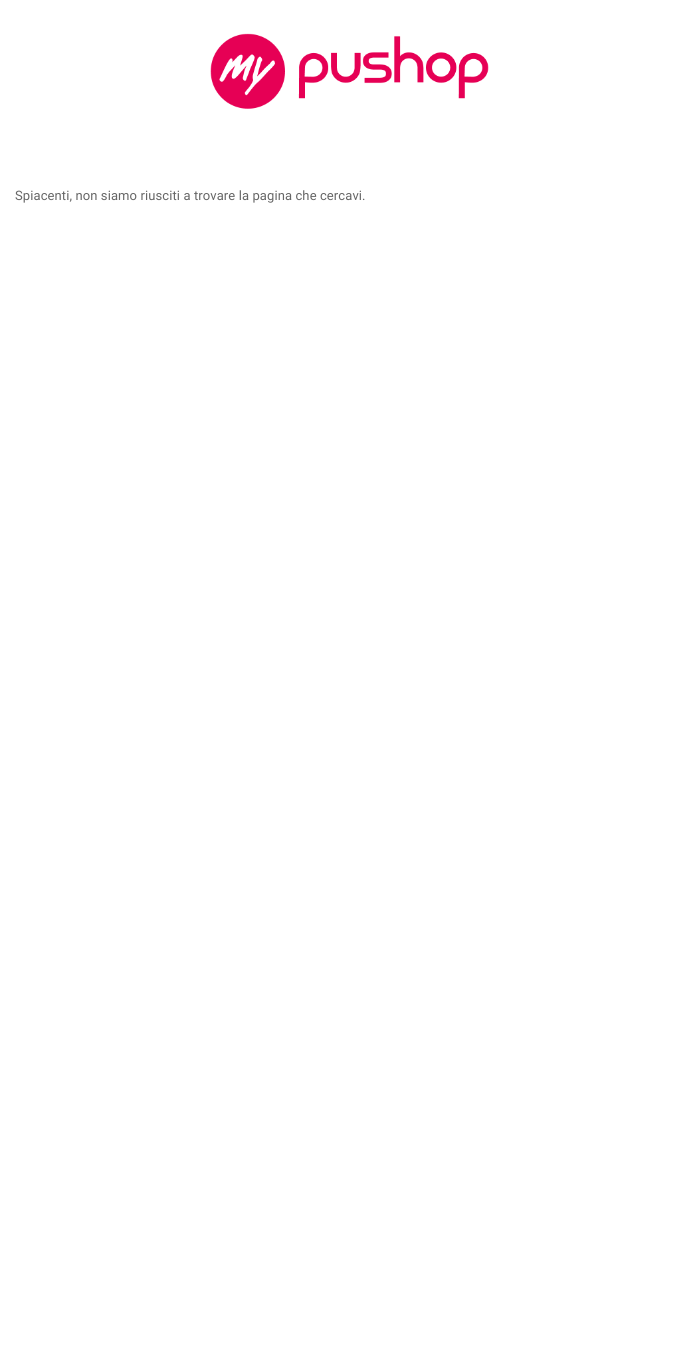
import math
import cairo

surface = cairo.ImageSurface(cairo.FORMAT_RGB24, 699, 1355)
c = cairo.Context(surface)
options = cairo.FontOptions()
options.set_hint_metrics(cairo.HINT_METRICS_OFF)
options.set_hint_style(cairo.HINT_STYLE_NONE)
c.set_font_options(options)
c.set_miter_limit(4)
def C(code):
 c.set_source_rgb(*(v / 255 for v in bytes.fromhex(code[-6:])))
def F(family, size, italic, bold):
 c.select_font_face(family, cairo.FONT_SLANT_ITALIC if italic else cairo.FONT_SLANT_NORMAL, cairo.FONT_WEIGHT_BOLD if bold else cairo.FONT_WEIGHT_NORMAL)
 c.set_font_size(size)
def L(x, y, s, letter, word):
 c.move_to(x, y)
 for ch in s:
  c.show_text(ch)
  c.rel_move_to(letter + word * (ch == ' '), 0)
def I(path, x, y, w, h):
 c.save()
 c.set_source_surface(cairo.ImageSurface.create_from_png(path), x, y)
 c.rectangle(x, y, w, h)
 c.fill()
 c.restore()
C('ffffff')
c.paint()
I('1.png',210,33,279,76)
F('Roboto',13,0,0)
C('666666')
L(15,200,'Spiacenti, non siamo riusciti a trovare la pagina che cercavi.',.1,0)
surface.write_to_png('o.png')
